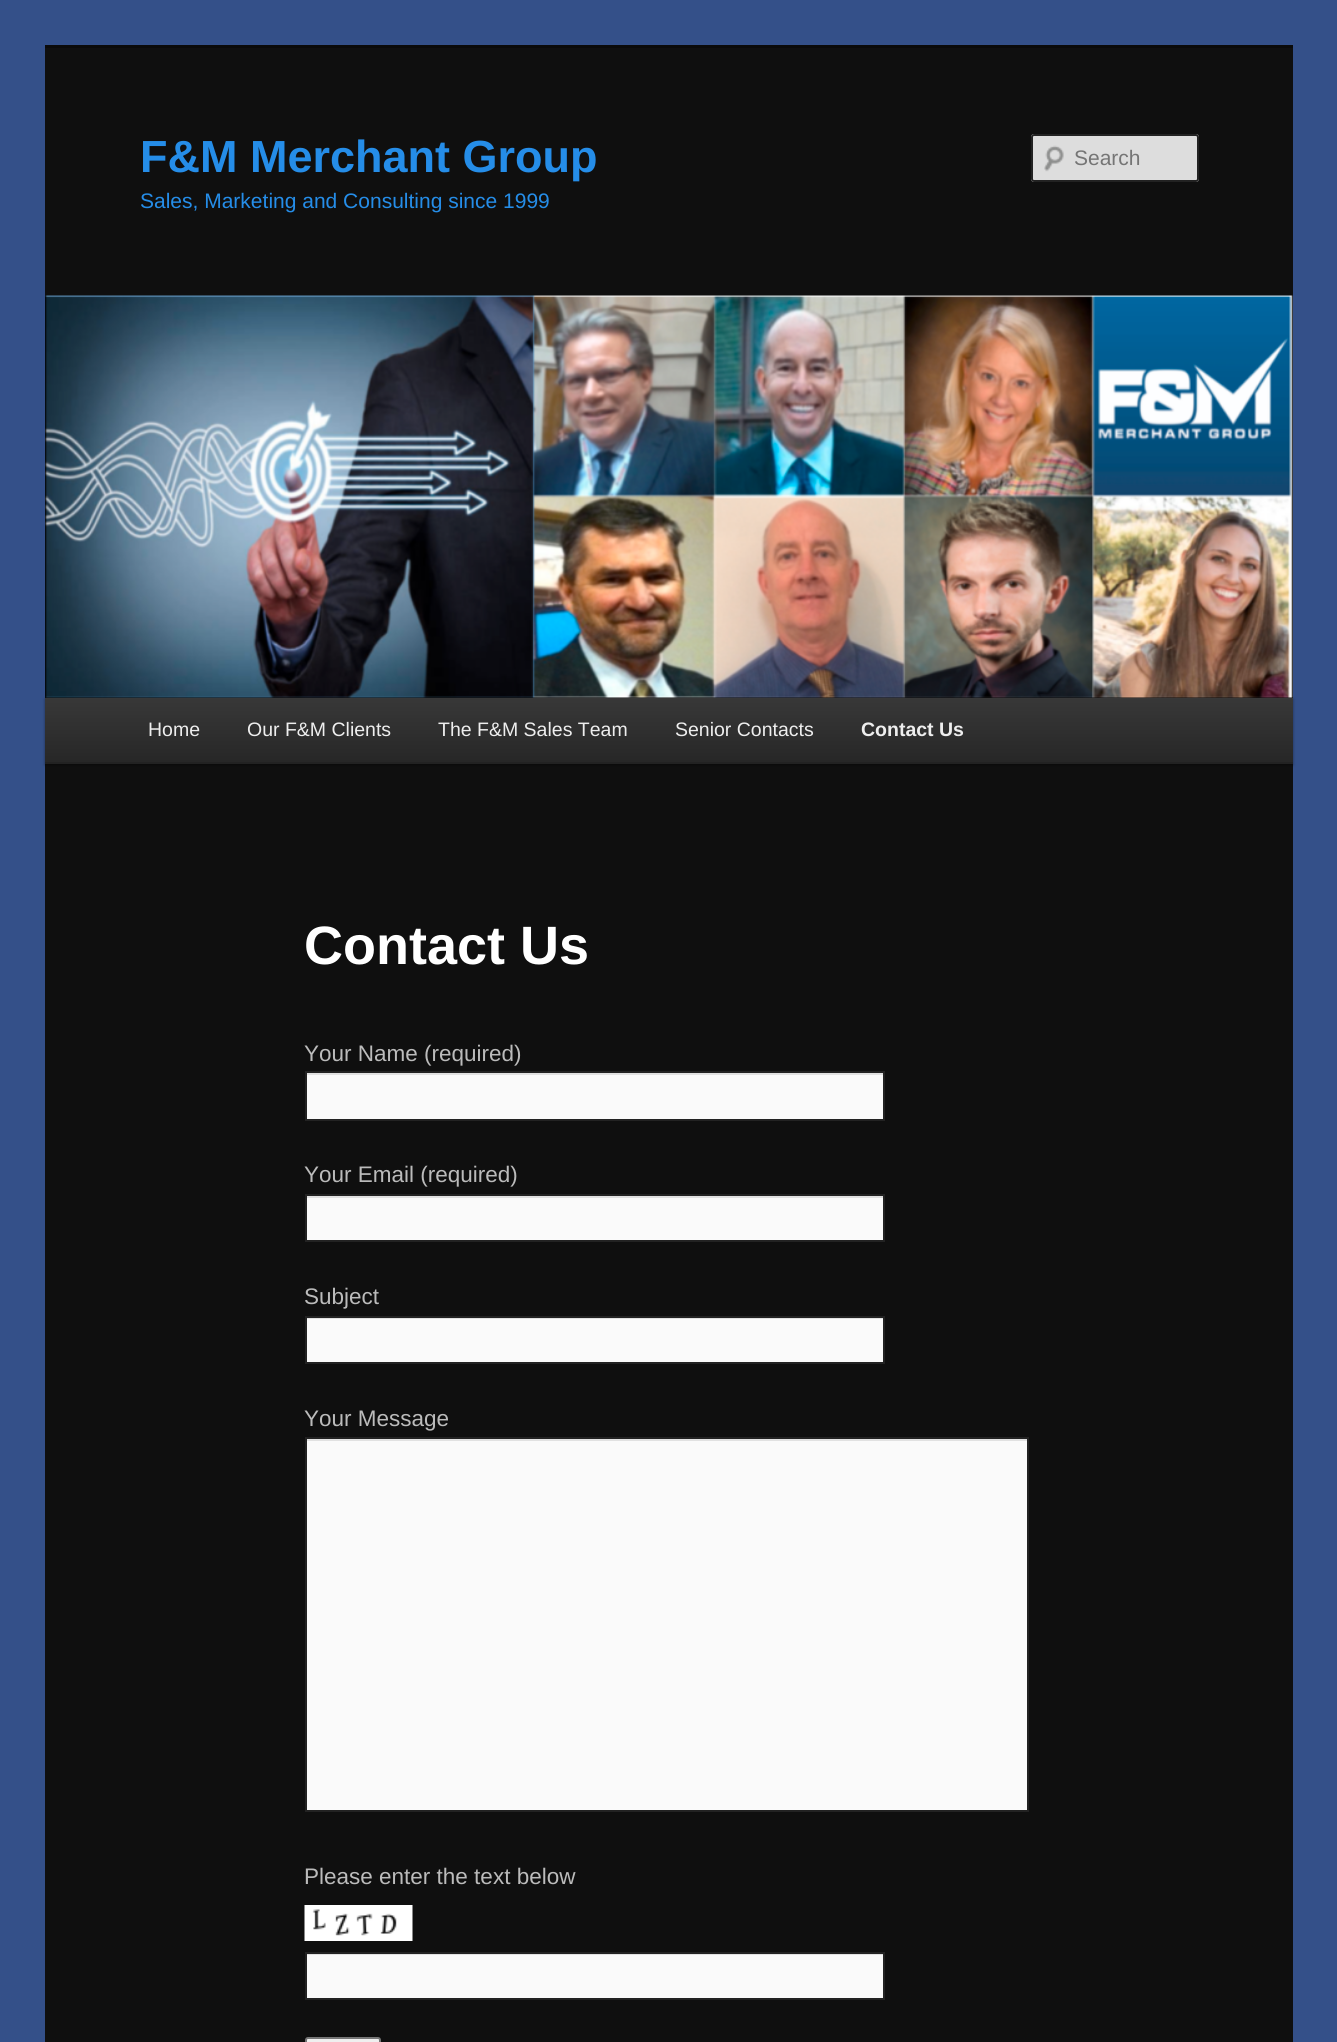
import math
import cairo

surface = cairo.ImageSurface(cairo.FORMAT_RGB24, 1337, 2042)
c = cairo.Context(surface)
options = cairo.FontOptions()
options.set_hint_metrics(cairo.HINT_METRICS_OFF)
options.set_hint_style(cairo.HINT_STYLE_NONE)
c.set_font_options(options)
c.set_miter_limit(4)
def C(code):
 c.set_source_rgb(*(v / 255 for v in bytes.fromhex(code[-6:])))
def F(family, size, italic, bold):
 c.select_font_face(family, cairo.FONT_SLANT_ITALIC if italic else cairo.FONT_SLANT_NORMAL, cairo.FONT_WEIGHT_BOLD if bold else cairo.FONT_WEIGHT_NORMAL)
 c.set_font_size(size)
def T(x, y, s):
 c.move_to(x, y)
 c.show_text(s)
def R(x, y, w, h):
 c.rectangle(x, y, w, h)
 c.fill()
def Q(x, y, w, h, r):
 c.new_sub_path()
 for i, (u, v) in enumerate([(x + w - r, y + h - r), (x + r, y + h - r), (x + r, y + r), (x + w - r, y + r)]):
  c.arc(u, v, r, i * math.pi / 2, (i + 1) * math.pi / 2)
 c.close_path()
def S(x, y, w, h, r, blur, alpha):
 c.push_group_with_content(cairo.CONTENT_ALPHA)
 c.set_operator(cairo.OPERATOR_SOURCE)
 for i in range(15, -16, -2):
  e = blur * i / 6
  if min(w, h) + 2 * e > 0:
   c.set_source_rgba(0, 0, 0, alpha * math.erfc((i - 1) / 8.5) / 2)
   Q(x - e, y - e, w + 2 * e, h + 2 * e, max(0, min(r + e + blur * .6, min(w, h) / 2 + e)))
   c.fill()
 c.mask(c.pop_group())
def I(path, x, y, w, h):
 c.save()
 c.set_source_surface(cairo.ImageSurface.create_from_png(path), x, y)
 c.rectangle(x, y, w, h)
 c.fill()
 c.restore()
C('345089')
c.paint()
C('0f0f0f')
R(45,48,1248,1994)
C('0a0a0a')
R(45,45,1248,3)
F('Liberation Sans',45,0,1)
C('258de8')
T(140,172,'F&M Merchant Group')
F('Liberation Sans',21,0,0)
T(140,208,'Sales, Marketing and Consulting since 1999')
C('dddddd')
Q(1031,134,168,48,3)
c.fill()
I('1.png',1044,145,20,27)
C('c7c7c7')
c.new_path()
c.move_to(1034,136)
c.line_to(1196,136)
c.line_to(1197,138)
c.line_to(1197,136)
c.curve_to(1197,136,1196,135,1196,135)
c.line_to(1034,135)
c.curve_to(1033,135,1032,136,1032,136)
c.line_to(1032,138)
c.curve_to(1032,137,1033,136,1034,136)
c.close_path()
c.fill()
Q(1032,135,166,46,2)
C('222222')
c.stroke()
C('757575')
T(1074,165,'Search')
C('000000')
S(45,699,1248,66,0,1.5,.4)
I('2.png',45,295,1248,403)
gradient = cairo.LinearGradient(669,697,669,762)
gradient.add_color_stop_rgba(0,0.22,0.22,0.22,1)
gradient.add_color_stop_rgba(1,0.153,0.153,0.153,1)
c.set_source(gradient)
R(45,698,1248,64)
C('222222')
R(45,762,1248,2)
F('Liberation Sans',19.5,0,0)
C('eeeeee')
T(148,736,'Home')
T(247,736,'Our F&M Clients')
T(438,736,'The F&M Sales Team')
T(675,736,'Senior Contacts')
F('Liberation Sans',19.5,0,1)
T(861,736,'Contact Us')
F('Liberation Sans',54,0,1)
C('ffffff')
T(304,964,'Contact Us')
F('Liberation Sans',22.5,0,0)
C('bbbbbb')
T(304,1061,'Your Name (required)')
C('fafafa')
R(307,1075,576,44)
C('e1e1e1')
R(306,1073,578,2)
c.rectangle(306,1072,578,48)
C('222222')
c.stroke()
C('bbbbbb')
T(304,1182,'Your Email (required)')
C('fafafa')
R(307,1198,576,42)
C('e1e1e1')
R(306,1196,578,2)
c.rectangle(306,1195,578,46)
C('222222')
c.stroke()
C('bbbbbb')
T(304,1304,'Subject')
C('fafafa')
R(307,1319,576,43)
C('e1e1e1')
R(306,1318,578,1)
c.rectangle(306,1317,578,46)
C('222222')
c.stroke()
C('bbbbbb')
T(304,1426,'Your Message')
C('fafafa')
R(307,1441,720,369)
C('e1e1e1')
R(306,1439,722,2)
c.rectangle(306,1438,722,373)
C('222222')
c.stroke()
C('bbbbbb')
T(304,1884,'Please enter the text below')
I('3.png',304,1905,109,36)
C('fafafa')
R(307,1955,576,43)
C('e1e1e1')
R(306,1954,578,1)
c.rectangle(306,1953,578,46)
C('222222')
c.stroke()
C('efefef')
Q(306,2038,74,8,2)
c.fill_preserve()
C('767676')
c.stroke()
surface.write_to_png('o.png')
